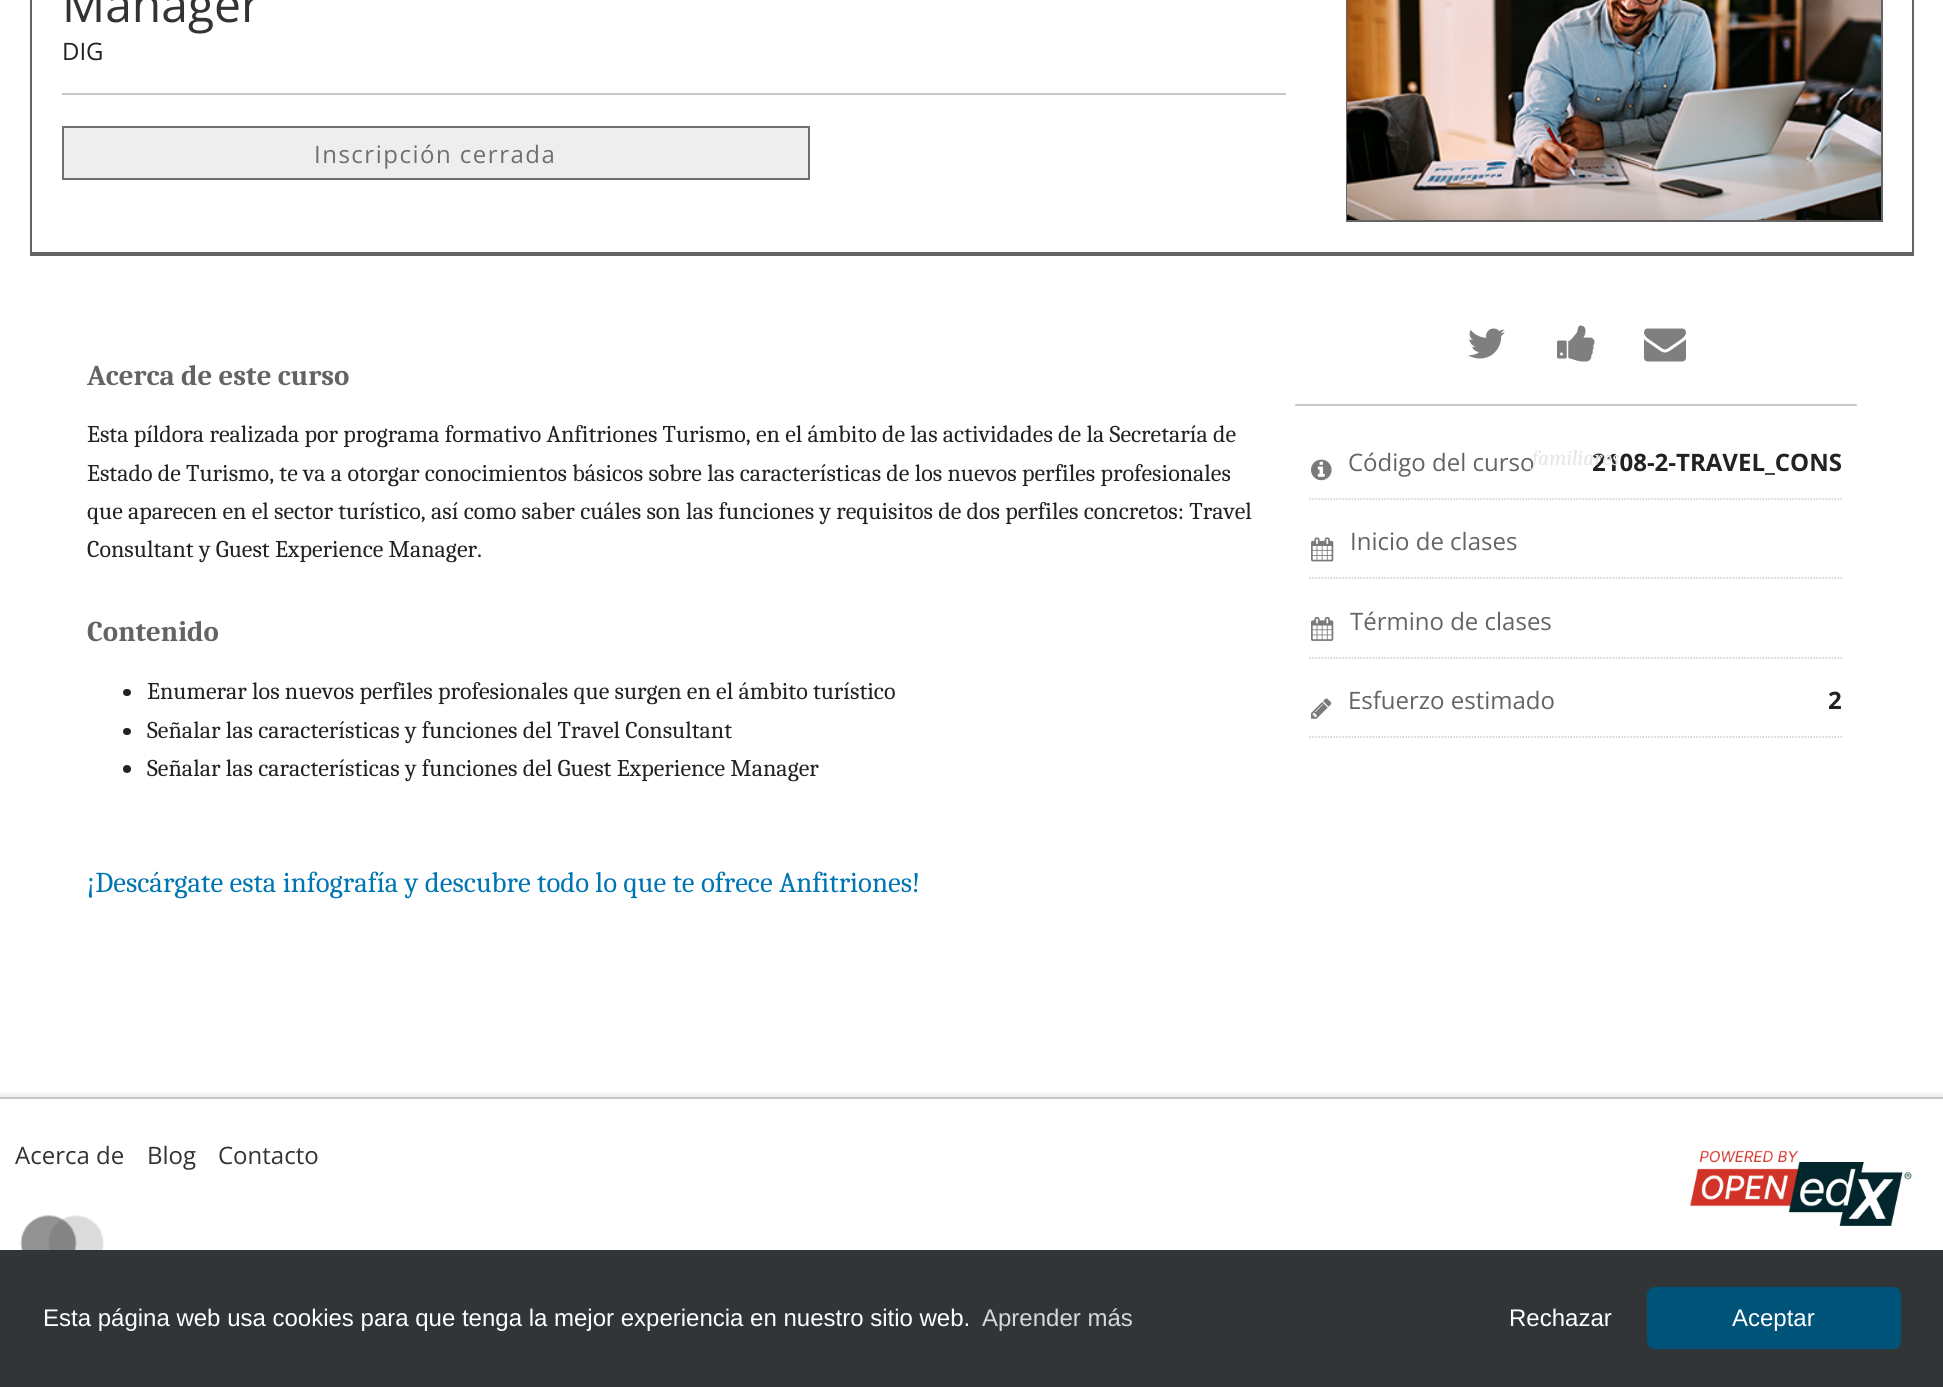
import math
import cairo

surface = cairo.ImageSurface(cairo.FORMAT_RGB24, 1943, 1387)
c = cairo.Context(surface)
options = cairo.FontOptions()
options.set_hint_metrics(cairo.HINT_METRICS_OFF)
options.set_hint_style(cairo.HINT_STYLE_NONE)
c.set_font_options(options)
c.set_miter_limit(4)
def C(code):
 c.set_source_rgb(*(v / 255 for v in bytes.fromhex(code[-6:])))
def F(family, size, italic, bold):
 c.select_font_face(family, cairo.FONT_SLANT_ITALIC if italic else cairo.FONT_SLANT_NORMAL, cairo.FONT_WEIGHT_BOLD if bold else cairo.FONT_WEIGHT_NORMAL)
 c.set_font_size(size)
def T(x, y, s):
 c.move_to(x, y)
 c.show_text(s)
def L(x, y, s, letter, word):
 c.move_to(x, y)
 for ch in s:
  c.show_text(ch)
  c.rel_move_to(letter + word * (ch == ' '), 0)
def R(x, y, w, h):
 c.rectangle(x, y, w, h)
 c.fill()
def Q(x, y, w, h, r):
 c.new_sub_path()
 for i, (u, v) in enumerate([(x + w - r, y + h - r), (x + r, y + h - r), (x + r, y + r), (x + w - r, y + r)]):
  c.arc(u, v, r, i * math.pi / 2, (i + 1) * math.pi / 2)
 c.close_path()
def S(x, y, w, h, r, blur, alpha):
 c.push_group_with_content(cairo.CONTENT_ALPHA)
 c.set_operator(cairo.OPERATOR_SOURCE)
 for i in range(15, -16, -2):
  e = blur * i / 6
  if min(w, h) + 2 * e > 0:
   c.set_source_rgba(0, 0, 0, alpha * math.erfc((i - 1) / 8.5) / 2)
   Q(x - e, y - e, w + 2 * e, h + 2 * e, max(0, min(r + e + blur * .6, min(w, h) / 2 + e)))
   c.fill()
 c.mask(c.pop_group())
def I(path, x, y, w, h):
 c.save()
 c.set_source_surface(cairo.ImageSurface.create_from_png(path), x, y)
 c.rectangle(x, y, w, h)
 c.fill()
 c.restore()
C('ffffff')
c.paint()
C('646464')
R(30,254,1884,2)
c.rectangle(31,-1,1882,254)
c.stroke()
C('c8c8c8')
R(62,93,1224,2)
F('Open Sans',48,0,0)
C('333333')
T(62,22,'Manager')
F('Open Sans',24,0,0)
C('222222')
T(62,60,'DIG')
C('eeeeee')
c.rectangle(63,127,746,52)
c.fill_preserve()
C('6f6f6f')
c.stroke()
L(314,163,'Inscripción cerrada',1.5,0)
c.rectangle(1347,-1,535,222)
C('646464')
c.stroke()
I('1.png',1347,0,534,220)
F('Caladea',28.8,0,1)
T(87,385,'Acerca de este curso')
F('Caladea',24,0,0)
C('222222')
T(87,442,'Esta píldora realizada por programa formativo Anfitriones Turismo, en el ámbito de las actividades de la Secretaría de')
T(87,481,'Estado de Turismo, te va a otorgar conocimientos básicos sobre las características de los nuevos perfiles profesionales')
T(87,519,'que aparecen en el sector turístico, así como saber cuáles son las funciones y requisitos de dos perfiles concretos: Travel')
T(87,557,'Consultant y Guest Experience Manager.')
F('Caladea',28.8,0,1)
C('646464')
T(87,641,'Contenido')
C('222222')
Q(123,689,8,7,3.5)
c.fill()
F('Caladea',24,0,0)
T(147,699,'Enumerar los nuevos perfiles profesionales que surgen en el ámbito turístico')
Q(123,728,8,7,3.5)
c.fill()
T(147,738,'Señalar las características y funciones del Travel Consultant')
c.new_path()
c.arc(127,769,4,0,2 * math.pi)
c.fill()
T(147,776,'Señalar las características y funciones del Guest Experience Manager')
F('Caladea',28.8,0,0)
C('0075b4')
T(87,892,'¡Descárgate esta infografía y descubre todo lo que te ofrece Anfitriones!')
C('c8c8c8')
Q(1295,404,562,2,1)
c.fill()
I('2.png',1468,328,37,31)
I('3.png',1557,325,38,37)
I('4.png',1644,328,42,34)
F('Open Sans',24,0,0)
C('646464')
T(1348,471,'Código del curso')
F('Open Sans',24,0,1)
C('222222')
T(1592,471,'2108-2-TRAVEL_CONS')
F('Caladea',21.5,1,0)
C('e6e6e6')
T(1532,465,'familiares')
c.new_path()
c.move_to(1309.5,499)
c.line_to(1842,499)
C('c8c8c8')
c.set_line_width(1.5)
c.set_dash([1.5,1.5])
c.stroke()
I('5.png',1311,459,21,22)
c.new_path()
c.move_to(1309.5,578)
c.line_to(1842,578)
c.stroke()
I('6.png',1311,537,23,25)
F('Open Sans',24,0,0)
C('646464')
T(1350,550,'Inicio de clases')
c.new_path()
c.move_to(1309.5,658)
c.line_to(1842,658)
C('c8c8c8')
c.stroke()
I('7.png',1311,616,23,25)
C('646464')
T(1350,630,'Término de clases')
c.new_path()
c.move_to(1309.5,737)
c.line_to(1842,737)
C('c8c8c8')
c.stroke()
I('8.png',1311,698,21,21)
C('646464')
T(1348,709,'Esfuerzo estimado')
F('Open Sans',24,0,1)
C('222222')
T(1828,709,'2')
c.save()
c.rectangle(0,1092,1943,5)
c.clip()
C('000000')
S(0,1095,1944,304,0,4,.1)
c.restore()
C('c5c6c7')
R(0,1097,1943,2)
F('Open Sans',24,0,0)
C('333333')
T(15,1164,'Acerca de')
T(147,1164,'Blog')
T(218,1164,'Contacto')
I('9.png',20,1215,84,35)
I('10.png',1690,1150,222,76)
C('323538')
R(0,1250,1943,137)
F('Liberation Sans',24,0,0)
C('ffffff')
T(43,1326,'Esta página web usa cookies para que tenga la mejor experiencia en nuestro sitio web.')
C('d6d7d7')
T(982,1326,'Aprender más')
C('ffffff')
T(1509,1326,'Rechazar')
C('005379')
Q(1647,1287,254,62,8)
c.fill()
C('ffffff')
T(1732,1326,'Aceptar')
surface.write_to_png('o.png')
